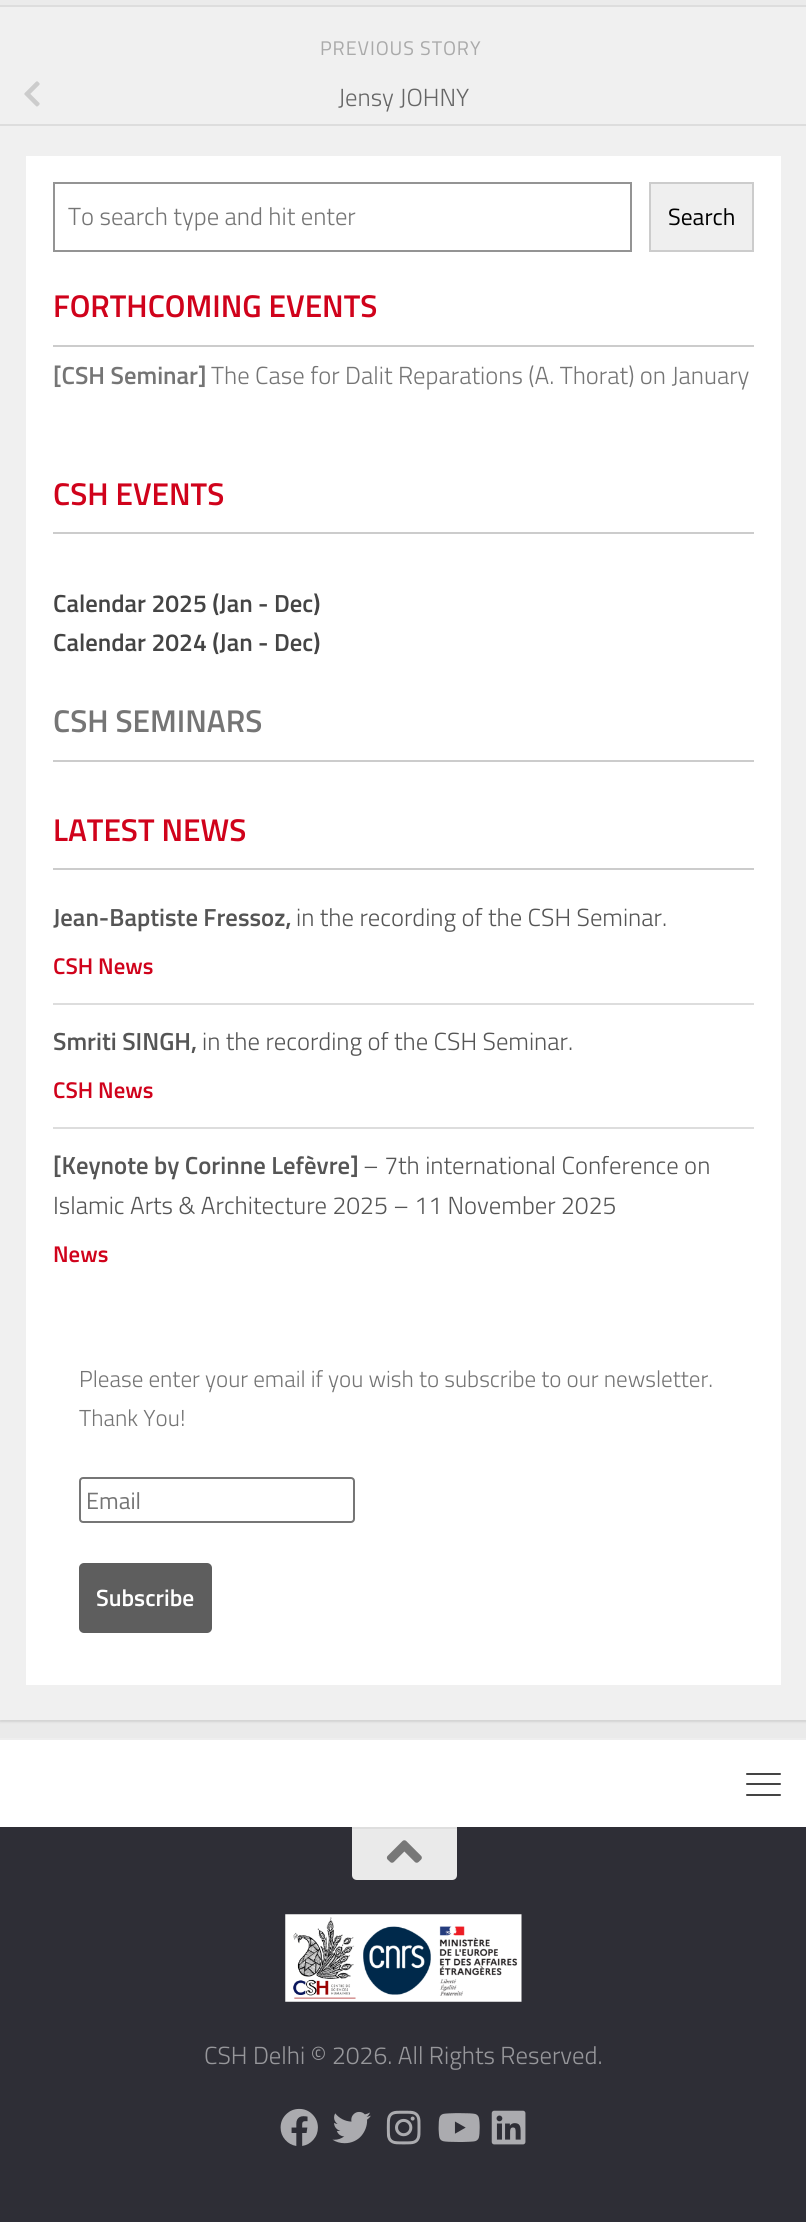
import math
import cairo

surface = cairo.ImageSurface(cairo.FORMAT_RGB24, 806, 2222)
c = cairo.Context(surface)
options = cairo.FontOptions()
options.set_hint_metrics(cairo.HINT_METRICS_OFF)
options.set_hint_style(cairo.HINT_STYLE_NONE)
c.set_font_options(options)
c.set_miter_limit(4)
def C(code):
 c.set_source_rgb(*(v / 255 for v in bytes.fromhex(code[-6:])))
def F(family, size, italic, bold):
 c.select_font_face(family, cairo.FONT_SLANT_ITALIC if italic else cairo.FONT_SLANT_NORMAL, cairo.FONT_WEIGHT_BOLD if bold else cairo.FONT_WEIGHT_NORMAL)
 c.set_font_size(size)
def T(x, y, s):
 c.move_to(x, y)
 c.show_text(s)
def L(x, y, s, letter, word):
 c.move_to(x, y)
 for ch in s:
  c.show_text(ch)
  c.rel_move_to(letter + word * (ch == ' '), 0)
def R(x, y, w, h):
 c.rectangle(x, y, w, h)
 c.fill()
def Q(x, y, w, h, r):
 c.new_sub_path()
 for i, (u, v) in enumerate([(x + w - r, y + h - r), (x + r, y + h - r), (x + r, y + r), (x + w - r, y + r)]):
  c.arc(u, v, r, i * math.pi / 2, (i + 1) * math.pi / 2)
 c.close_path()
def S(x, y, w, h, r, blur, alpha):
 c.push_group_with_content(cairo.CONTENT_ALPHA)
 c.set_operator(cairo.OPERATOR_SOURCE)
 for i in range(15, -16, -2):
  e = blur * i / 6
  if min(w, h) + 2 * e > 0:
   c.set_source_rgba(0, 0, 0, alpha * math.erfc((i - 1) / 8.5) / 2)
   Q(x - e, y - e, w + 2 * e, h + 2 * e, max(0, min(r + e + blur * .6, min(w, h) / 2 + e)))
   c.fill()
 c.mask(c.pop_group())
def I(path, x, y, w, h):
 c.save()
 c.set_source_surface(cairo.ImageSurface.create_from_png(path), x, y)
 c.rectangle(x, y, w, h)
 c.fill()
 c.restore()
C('eaeaea')
c.paint()
C('000000')
S(0,-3,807,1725,0,1,.1)
C('f0f0f0')
R(0,7,806,1713)
C('ebebeb')
R(0,0,806,5)
C('dddddd')
R(0,5,806,2)
F('Titillium Web',19.75,0,0)
C('aaaaaa')
L(320,55,'PREVIOUS STORY',.9,0)
C('dddddd')
R(0,124,806,2)
I('1.png',24,81,16,26)
F('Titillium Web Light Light',24.7,0,0)
C('666666')
T(338,106,'Jensy JOHNY')
C('ffffff')
R(26,156,755,1529)
c.rectangle(54,183,577,68)
C('949494')
c.stroke()
C('757575')
T(68,225,'To search type and hit enter')
C('efefef')
c.rectangle(650,183,103,68)
c.fill_preserve()
C('cccccc')
c.stroke()
F('Titillium Web',23.5,0,0)
C('000000')
T(668,225,'Search')
C('cccccc')
R(53,345,701,2)
F('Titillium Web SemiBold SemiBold',31.5,0,0)
C('d0021b')
T(53,317,'FORTHCOMING EVENTS')
F('Titillium Web SemiBold SemiBold',24.7,0,0)
C('757575')
T(53,384,'[CSH Seminar]')
F('Titillium Web Light Light',24.7,0,0)
T(211,384,'The Case for Dalit Reparations (A. Thorat) on January')
C('cccccc')
R(53,532,701,2)
F('Titillium Web SemiBold SemiBold',31.5,0,0)
C('d0021b')
T(53,505,'CSH EVENTS')
F('Titillium Web SemiBold SemiBold',24.7,0,0)
C('444444')
T(53,612,'Calendar 2025 (Jan - Dec)')
T(53,651,'Calendar 2024 (Jan - Dec)')
C('cccccc')
R(53,760,701,2)
F('Titillium Web SemiBold SemiBold',31.5,0,0)
C('757575')
T(53,732,'CSH SEMINARS')
C('cccccc')
R(53,868,701,2)
C('d0021b')
T(53,841,'LATEST NEWS')
C('dddddd')
R(53,1003,701,2)
F('Titillium Web SemiBold SemiBold',24.7,0,0)
C('555555')
T(53,926,'Jean-Baptiste Fressoz,')
F('Titillium Web Light Light',24.7,0,0)
T(296,926,'in the recording of the CSH Seminar.')
F('Titillium Web SemiBold SemiBold',22.75,0,0)
C('d0021b')
T(53,974,'CSH News')
C('dddddd')
R(53,1127,701,2)
F('Titillium Web SemiBold SemiBold',24.7,0,0)
C('555555')
T(53,1050,'Smriti SINGH,')
F('Titillium Web Light Light',24.7,0,0)
T(202,1050,'in the recording of the CSH Seminar.')
F('Titillium Web SemiBold SemiBold',22.75,0,0)
C('d0021b')
T(53,1098,'CSH News')
F('Titillium Web SemiBold SemiBold',24.7,0,0)
C('555555')
T(53,1174,'[Keynote by Corinne Lefèvre]')
F('Titillium Web Light Light',24.7,0,0)
T(363,1174,'– 7th international Conference on')
T(53,1214,'Islamic Arts & Architecture 2025 – 11 November 2025')
F('Titillium Web SemiBold SemiBold',22.75,0,0)
C('d0021b')
T(53,1262,'News')
F('Titillium Web Light Light',23.1,0,0)
C('757575')
T(79,1387,'Please enter your email if you wish to subscribe to our newsletter.')
T(79,1426,'Thank You!')
Q(80,1478,274,44,3)
C('767676')
c.stroke()
F('Titillium Web',23.5,0,0)
C('757575')
T(86,1509,'Email')
C('5e5e5e')
Q(79,1563,133,70,5)
c.fill()
F('Titillium Web SemiBold SemiBold',23.5,0,0)
C('ffffff')
T(96,1606,'Subscribe')
R(0,1740,806,87)
C('eeeeee')
R(0,1738,806,2)
C('444444')
Q(746,1773,35,2,1)
c.fill()
Q(746,1783,35,2,1)
c.fill()
Q(746,1794,35,2,1)
c.fill()
C('2e2e36')
R(0,1827,806,395)
C('eaeaea')
c.new_path()
c.move_to(352,1827)
c.line_to(457,1827)
c.line_to(457,1875)
c.curve_to(457,1878,455,1880,452,1880)
c.line_to(357,1880)
c.curve_to(354,1880,352,1878,352,1875)
c.close_path()
c.fill()
C('dedede')
R(352,1827,105,2)
I('2.png',386,1840,36,23)
I('3.png',285,1914,237,88)
F('Titillium Web Light Light',24.7,0,0)
C('97979b')
T(204,2064,'CSH Delhi © 2026. All Rights Reserved.')
I('4.png',280,2108,38,38)
I('5.png',332,2111,39,33)
I('6.png',386,2110,35,35)
I('7.png',438,2113,42,29)
I('8.png',491,2110,35,35)
surface.write_to_png('o.png')
